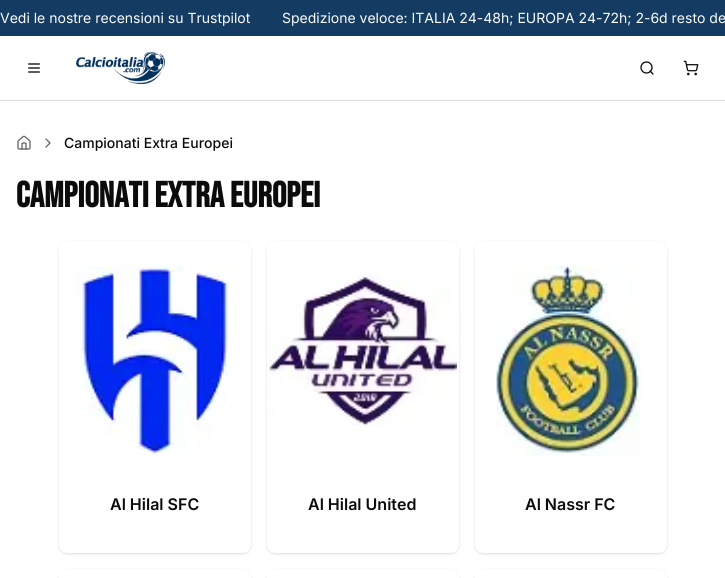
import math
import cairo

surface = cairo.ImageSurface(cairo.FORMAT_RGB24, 725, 578)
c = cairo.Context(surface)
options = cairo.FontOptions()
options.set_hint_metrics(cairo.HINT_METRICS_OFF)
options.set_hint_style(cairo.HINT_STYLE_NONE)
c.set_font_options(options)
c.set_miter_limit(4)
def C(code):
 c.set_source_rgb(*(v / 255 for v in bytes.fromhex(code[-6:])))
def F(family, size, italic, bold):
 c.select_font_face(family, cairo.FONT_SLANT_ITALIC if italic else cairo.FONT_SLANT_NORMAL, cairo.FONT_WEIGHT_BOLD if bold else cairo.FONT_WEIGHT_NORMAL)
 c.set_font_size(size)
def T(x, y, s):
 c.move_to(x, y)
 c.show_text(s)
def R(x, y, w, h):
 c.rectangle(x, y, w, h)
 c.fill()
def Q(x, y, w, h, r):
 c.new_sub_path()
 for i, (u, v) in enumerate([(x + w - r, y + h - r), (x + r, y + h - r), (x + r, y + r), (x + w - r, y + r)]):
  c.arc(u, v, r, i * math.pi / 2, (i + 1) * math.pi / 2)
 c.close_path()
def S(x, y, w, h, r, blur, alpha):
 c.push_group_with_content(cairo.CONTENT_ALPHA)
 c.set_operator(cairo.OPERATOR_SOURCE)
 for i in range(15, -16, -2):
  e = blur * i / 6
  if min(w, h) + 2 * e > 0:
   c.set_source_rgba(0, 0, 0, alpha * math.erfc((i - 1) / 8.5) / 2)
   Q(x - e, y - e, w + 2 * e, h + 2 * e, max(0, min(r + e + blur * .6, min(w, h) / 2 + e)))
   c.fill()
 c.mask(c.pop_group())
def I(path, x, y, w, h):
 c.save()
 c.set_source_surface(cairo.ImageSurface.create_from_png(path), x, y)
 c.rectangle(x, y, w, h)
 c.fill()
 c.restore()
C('ffffff')
c.paint()
C('143c62')
R(0,0,725,36)
F('Inter',14,0,0)
C('fcfcfc')
T(0,23,'Vedi le nostre recensioni su Trustpilot')
T(282,23,'Spedizione veloce: ITALIA 24-48h; EUROPA 24-72h; 2-6d resto de')
C('dedede')
R(0,100,725,1)
I('1.png',28,63,12,10)
I('2.png',76,52,89,32)
c.arc(646.5,67.5,5.5,0,2 * math.pi)
C('0b0b0b')
c.set_line_width(1.3)
c.stroke()
c.new_path()
c.move_to(653,74)
c.line_to(650,71)
c.set_line_cap(cairo.LINE_CAP_ROUND)
c.set_line_join(cairo.LINE_JOIN_ROUND)
c.stroke()
I('3.png',683,60,16,16)
I('4.png',17,135,14,15)
c.new_path()
c.move_to(46,147)
c.line_to(50,143)
c.line_to(46,139)
C('636363')
c.stroke()
F('Inter Medium',14,0,0)
C('0b0b0b')
T(64,148,'Campionati Extra Europei')
F('Bebas Neue',36,0,1)
T(16,207,'Campionati Extra Europei')
C('000000')
S(60,243,190,310,7,1,.1)
S(59,242,192,312,8,1.5,.1)
C('ffffff')
Q(59,241,192,312,8)
c.fill()
I('5.png',75,266,155,190)
F('Inter SemiBold',16,0,0)
C('0b0b0b')
T(110,510,'Al Hilal SFC')
C('000000')
S(268,243,190,310,7,1,.1)
S(267,242,192,312,8,1.5,.1)
C('ffffff')
Q(267,241,192,312,8)
c.fill()
I('6.png',268,274,189,152)
C('0b0b0b')
T(308,510,'Al Hilal United')
C('000000')
S(476,243,190,310,7,1,.1)
S(475,242,192,312,8,1.5,.1)
C('ffffff')
Q(475,241,192,312,8)
c.fill()
I('7.png',495,266,146,190)
C('0b0b0b')
T(525,510,'Al Nassr FC')
C('000000')
S(59,570,192,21,8,1.5,.1)
C('ffffff')
Q(59,569,192,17,8)
c.fill()
C('000000')
S(267,570,192,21,8,1.5,.1)
C('ffffff')
Q(267,569,192,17,8)
c.fill()
C('000000')
S(475,570,192,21,8,1.5,.1)
C('ffffff')
Q(475,569,192,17,8)
c.fill()
surface.write_to_png('o.png')
